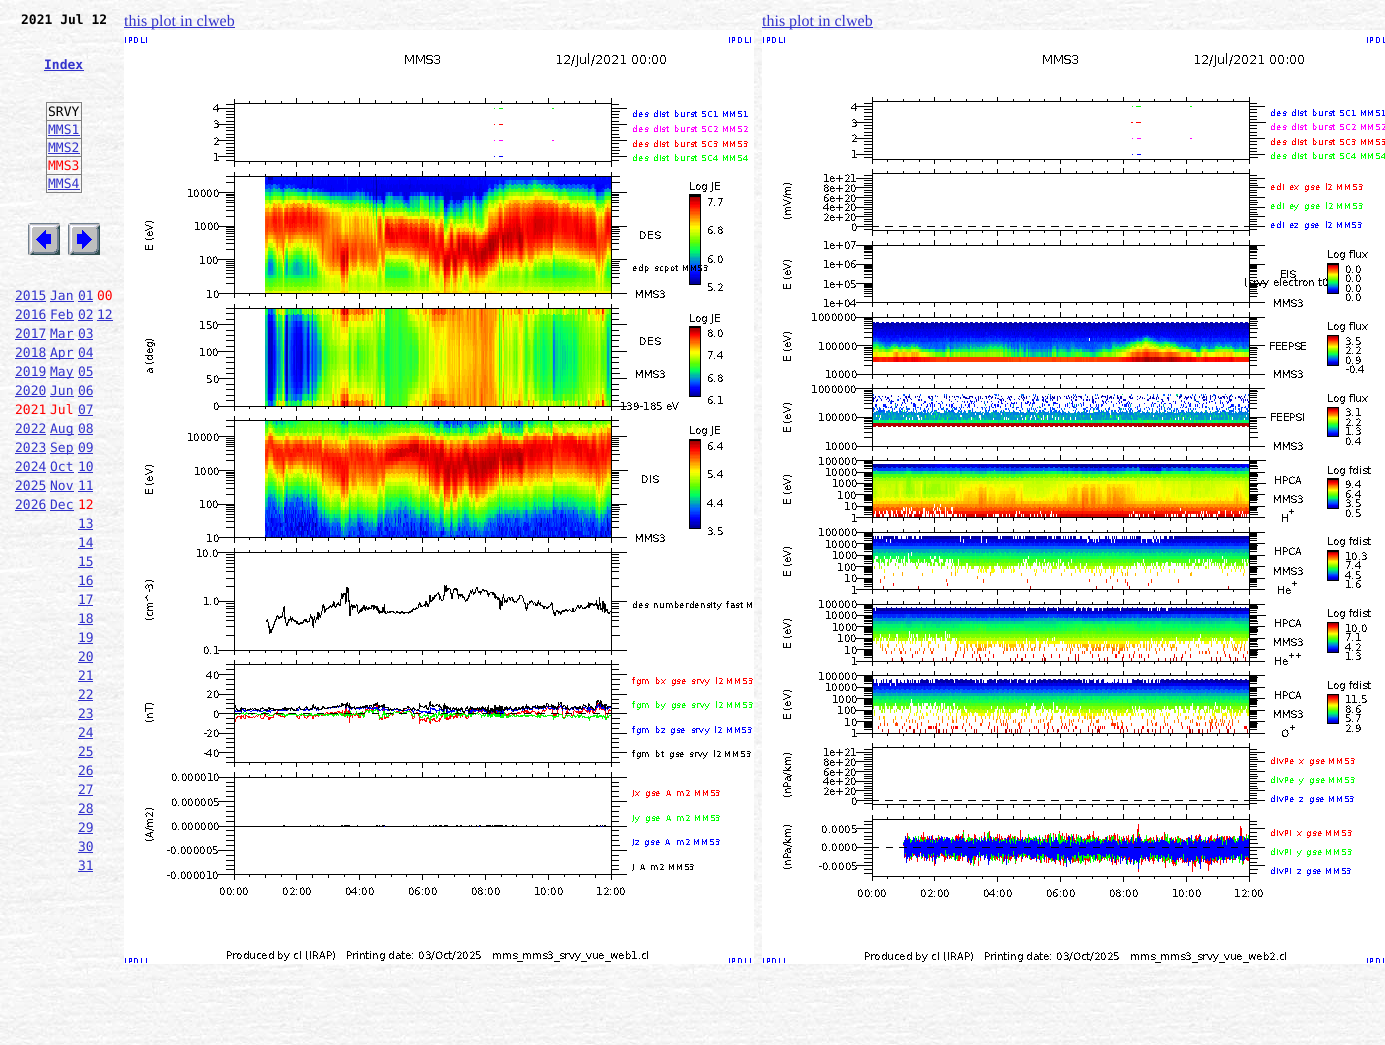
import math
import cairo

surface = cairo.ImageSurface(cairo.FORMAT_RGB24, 1385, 1045)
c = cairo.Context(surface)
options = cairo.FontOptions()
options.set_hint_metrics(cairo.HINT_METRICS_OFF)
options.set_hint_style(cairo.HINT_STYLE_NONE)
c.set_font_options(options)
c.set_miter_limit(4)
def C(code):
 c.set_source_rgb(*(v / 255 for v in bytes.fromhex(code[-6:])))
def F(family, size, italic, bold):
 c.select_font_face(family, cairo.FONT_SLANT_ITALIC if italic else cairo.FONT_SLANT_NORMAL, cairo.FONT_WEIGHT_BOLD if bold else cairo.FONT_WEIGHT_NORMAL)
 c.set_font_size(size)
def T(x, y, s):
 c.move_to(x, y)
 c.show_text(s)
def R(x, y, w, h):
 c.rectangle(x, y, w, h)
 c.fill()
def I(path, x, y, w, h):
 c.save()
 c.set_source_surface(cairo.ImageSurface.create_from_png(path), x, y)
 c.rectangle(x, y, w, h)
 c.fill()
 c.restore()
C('ffffff')
c.paint()
I('1.png',0,0,1385,1045)
F('DejaVu Sans Mono',13,0,1)
C('000000')
T(21,24,'2021 Jul 12')
C('3333cc')
T(44,69,'Index')
R(44,70,40,1)
C('808080')
R(46,102,36,1)
R(81,102,1,91)
R(46,192,36,1)
R(46,102,1,91)
F('DejaVu Sans Mono',13,0,0)
C('000000')
T(48,116,'SRVY')
C('808080')
R(46,120,36,1)
C('3333cc')
T(48,134,'MMS1')
R(48,135,32,1)
C('808080')
R(46,138,36,1)
C('3333cc')
T(48,152,'MMS2')
R(48,153,32,1)
C('808080')
R(46,156,36,1)
C('ff0000')
T(48,170,'MMS3')
C('808080')
R(46,174,36,1)
C('3333cc')
T(48,188,'MMS4')
R(48,189,32,1)
I('2.png',28,223,32,32)
I('3.png',68,223,32,32)
T(15,300,'2015')
R(15,301,31,1)
T(50,300,'Jan')
R(50,301,24,1)
T(78,300,'01')
R(78,301,15,1)
C('ff0000')
T(97,300,'00')
C('3333cc')
T(15,319,'2016')
R(15,320,31,1)
T(50,319,'Feb')
R(50,320,24,1)
T(78,319,'02')
R(78,320,15,1)
T(97,319,'12')
R(97,320,16,1)
T(15,338,'2017')
R(15,339,31,1)
T(50,338,'Mar')
R(50,339,24,1)
T(78,338,'03')
R(78,339,15,1)
T(15,357,'2018')
R(15,358,31,1)
R(50,358,24,1)
T(50,357,'Apr')
T(78,357,'04')
R(78,358,15,1)
T(15,376,'2019')
R(15,377,31,1)
R(50,377,24,1)
T(50,376,'May')
T(78,376,'05')
R(78,377,15,1)
T(15,395,'2020')
R(15,396,31,1)
T(50,395,'Jun')
R(50,396,24,1)
T(78,395,'06')
R(78,396,15,1)
C('ff0000')
T(15,414,'2021')
T(50,414,'Jul')
C('3333cc')
T(78,414,'07')
R(78,415,15,1)
T(15,433,'2022')
R(15,434,31,1)
R(50,434,24,1)
T(50,433,'Aug')
T(78,433,'08')
R(78,434,15,1)
T(15,452,'2023')
R(15,453,31,1)
R(50,453,24,1)
T(50,452,'Sep')
T(78,452,'09')
R(78,453,15,1)
T(15,471,'2024')
R(15,472,31,1)
T(50,471,'Oct')
R(50,472,24,1)
T(78,471,'10')
R(78,472,15,1)
T(15,490,'2025')
R(15,491,31,1)
T(50,490,'Nov')
R(50,491,24,1)
T(78,490,'11')
R(78,491,15,1)
T(15,509,'2026')
R(15,510,31,1)
T(50,509,'Dec')
R(50,510,24,1)
C('ff0000')
T(78,509,'12')
C('3333cc')
T(78,528,'13')
R(78,529,15,1)
T(78,547,'14')
R(78,548,15,1)
T(78,566,'15')
R(78,567,15,1)
T(78,585,'16')
R(78,586,15,1)
T(78,604,'17')
R(78,605,15,1)
T(78,623,'18')
R(78,624,15,1)
T(78,642,'19')
R(78,643,15,1)
T(78,661,'20')
R(78,662,15,1)
T(78,680,'21')
R(78,681,15,1)
T(78,699,'22')
R(78,700,15,1)
T(78,718,'23')
R(78,719,15,1)
T(78,737,'24')
R(78,738,15,1)
T(78,756,'25')
R(78,757,15,1)
T(78,775,'26')
R(78,776,15,1)
T(78,794,'27')
R(78,795,15,1)
T(78,813,'28')
R(78,814,15,1)
T(78,832,'29')
R(78,833,15,1)
T(78,851,'30')
R(78,852,15,1)
T(78,870,'31')
R(78,871,15,1)
R(124,27,111,1)
F('Liberation Serif',16,0,0)
T(124,26,'this plot in clweb')
I('4.png',124,30,630,934)
R(762,27,111,1)
T(762,26,'this plot in clweb')
I('5.png',762,30,623,934)
surface.write_to_png('o.png')
